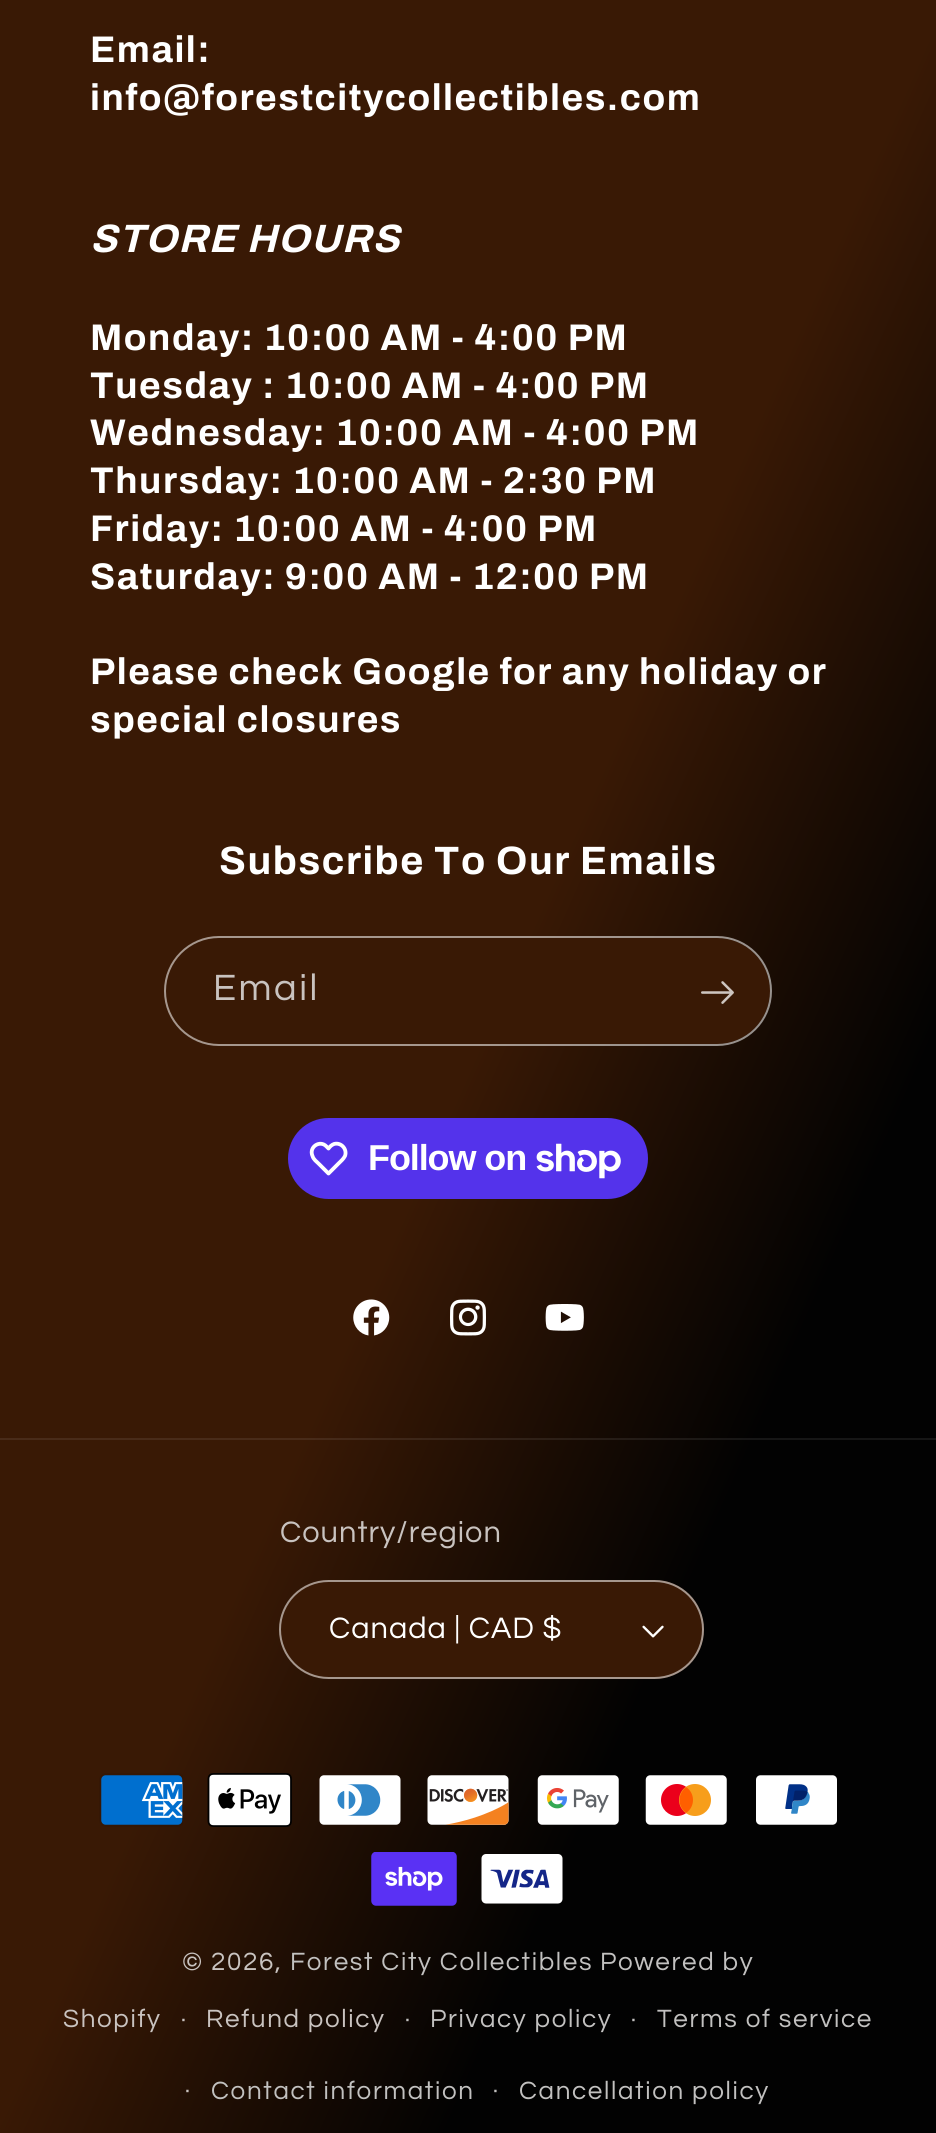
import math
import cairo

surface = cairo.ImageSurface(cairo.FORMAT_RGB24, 936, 2133)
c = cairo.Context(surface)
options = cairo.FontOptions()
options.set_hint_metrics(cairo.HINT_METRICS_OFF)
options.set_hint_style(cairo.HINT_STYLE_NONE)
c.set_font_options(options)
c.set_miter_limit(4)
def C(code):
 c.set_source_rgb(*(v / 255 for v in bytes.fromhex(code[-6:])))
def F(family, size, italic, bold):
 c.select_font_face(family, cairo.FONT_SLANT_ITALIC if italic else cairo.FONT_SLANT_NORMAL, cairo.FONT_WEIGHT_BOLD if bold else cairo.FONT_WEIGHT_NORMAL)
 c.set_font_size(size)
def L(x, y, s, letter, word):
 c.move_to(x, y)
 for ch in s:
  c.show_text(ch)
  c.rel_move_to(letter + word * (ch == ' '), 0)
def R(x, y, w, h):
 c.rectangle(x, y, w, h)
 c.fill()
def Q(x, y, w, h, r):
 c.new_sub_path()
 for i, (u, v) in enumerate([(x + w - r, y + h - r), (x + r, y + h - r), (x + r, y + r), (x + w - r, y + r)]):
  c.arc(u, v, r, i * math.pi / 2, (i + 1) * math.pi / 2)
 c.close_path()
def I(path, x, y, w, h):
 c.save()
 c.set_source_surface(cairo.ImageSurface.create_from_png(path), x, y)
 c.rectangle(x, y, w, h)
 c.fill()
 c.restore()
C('ffffff')
c.paint()
gradient = cairo.LinearGradient(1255,1417,-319,716)
gradient.add_color_stop_rgba(.26,0.008,0.008,0.008,1)
gradient.add_color_stop_rgba(.5,0.224,0.098,0.02,1)
c.set_source(gradient)
R(0,0,936,2133)
gradient = cairo.LinearGradient(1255,1417,-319,716)
gradient.add_color_stop_rgba(.26,0.086,0.086,0.086,1)
gradient.add_color_stop_rgba(.5,0.286,0.169,0.098,1)
c.set_source(gradient)
R(0,1438,936,2)
F('Archivo',37.1,0,1)
C('ffffff')
L(90,62,'Email:',1.5,0)
L(90,110,'info@forestcitycollectibles.com',1.5,0)
F('Archivo',39.6,1,1)
L(90,252,'STORE HOURS',1.5,0)
F('Archivo',37.1,0,1)
L(90,350,'Monday: 10:00 AM - 4:00 PM',1.5,0)
L(90,398,'Tuesday : 10:00 AM - 4:00 PM',1.5,0)
L(90,445,'Wednesday: 10:00 AM - 4:00 PM',1.5,0)
L(90,493,'Thursday: 10:00 AM - 2:30 PM',1.5,0)
L(90,541,'Friday: 10:00 AM - 4:00 PM',1.5,0)
L(90,589,'Saturday: 9:00 AM - 12:00 PM',1.5,0)
L(90,684,'Please check Google for any holiday or',1.5,0)
L(90,732,'special closures',1.5,0)
F('Archivo',39.6,0,1)
L(219,874,'Subscribe To Our Emails',1.5,0)
C('391905')
Q(167,938,603,106,53)
c.fill()
Q(165,937,606,108,54)
c.set_source_rgba(1,1,1,0.55)
c.stroke()
F('Questrial',38,0,0)
C('c9c3c0')
L(213,1000,'Email',2.5,0)
I('1.png',701,981,33,23)
C('5433eb')
Q(288,1118,360,81,40.5)
c.fill()
c.new_path()
c.move_to(326.5,1146.5)
c.line_to(328.5,1148.5)
c.curve_to(330,1146.5,331.5,1145,334,1144)
c.curve_to(341,1142,347.5,1149,345,1156)
c.curve_to(343.5,1159,340.5,1161.5,338,1164)
c.line_to(328.5,1173.5)
c.line_to(319,1164)
c.curve_to(316.5,1161.5,313.5,1159.5,312.5,1156)
c.curve_to(308.5,1147,320,1139.5,326.5,1146.5)
c.close_path()
C('ffffff')
c.set_line_width(3.8)
c.set_line_join(cairo.LINE_JOIN_ROUND)
c.stroke()
F('Liberation Sans',36,0,1)
L(368,1170,'Follow on',-1.1,0)
I('2.png',536,1143,85,36)
I('3.png',353,1299,37,37)
I('4.png',450,1299,36,37)
I('5.png',545,1304,39,27)
F('Questrial',30.75,0,0)
C('c9c3c0')
L(280,1542,'Country/region',1,0)
C('391905')
Q(279,1580,425,99,49.5)
c.fill()
I('6.png',642,1625,22,13)
Q(280,1581,423,97,48.5)
c.set_source_rgba(1,1,1,0.55)
c.set_line_width(2)
c.set_line_join(cairo.LINE_JOIN_MITER)
c.stroke()
C('ffffff')
L(329,1638,'Canada | CAD $',1,0)
I('7.png',99,1773,84,54)
I('8.png',207,1773,85,54)
I('9.png',319,1775,82,50)
I('10.png',427,1775,82,50)
I('11.png',537,1775,82,50)
I('12.png',645,1775,82,50)
I('13.png',756,1775,81,50)
I('14.png',371,1852,86,54)
I('15.png',481,1854,82,50)
F('Questrial',26,0,0)
C('c9c3c0')
L(182,1970,'© 2026,',1.65,0)
C('c2c1c0')
L(290,1970,'Forest City Collectibles',1.65,0)
L(600,1970,'Powered by',1.65,0)
C('c9c3c0')
L(63,2027,'Shopify',1.65,0)
F('Questrial',24,0,0)
L(181,2027,'·',1.65,0)
F('Questrial',26,0,0)
L(206,2027,'Refund policy',1.65,0)
F('Questrial',24,0,0)
C('c2c1c0')
L(405,2027,'·',1.65,0)
F('Questrial',26,0,0)
L(430,2027,'Privacy policy',1.65,0)
F('Questrial',24,0,0)
L(631,2027,'·',1.65,0)
F('Questrial',26,0,0)
L(657,2027,'Terms of service',1.65,0)
F('Questrial',24,0,0)
C('c9c3c0')
L(185,2098,'·',1.65,0)
F('Questrial',26,0,0)
C('c2c1c0')
L(211,2099,'Contact information',1.65,0)
F('Questrial',24,0,0)
L(493,2098,'·',1.65,0)
F('Questrial',26,0,0)
L(519,2099,'Cancellation policy',1.65,0)
surface.write_to_png('o.png')
